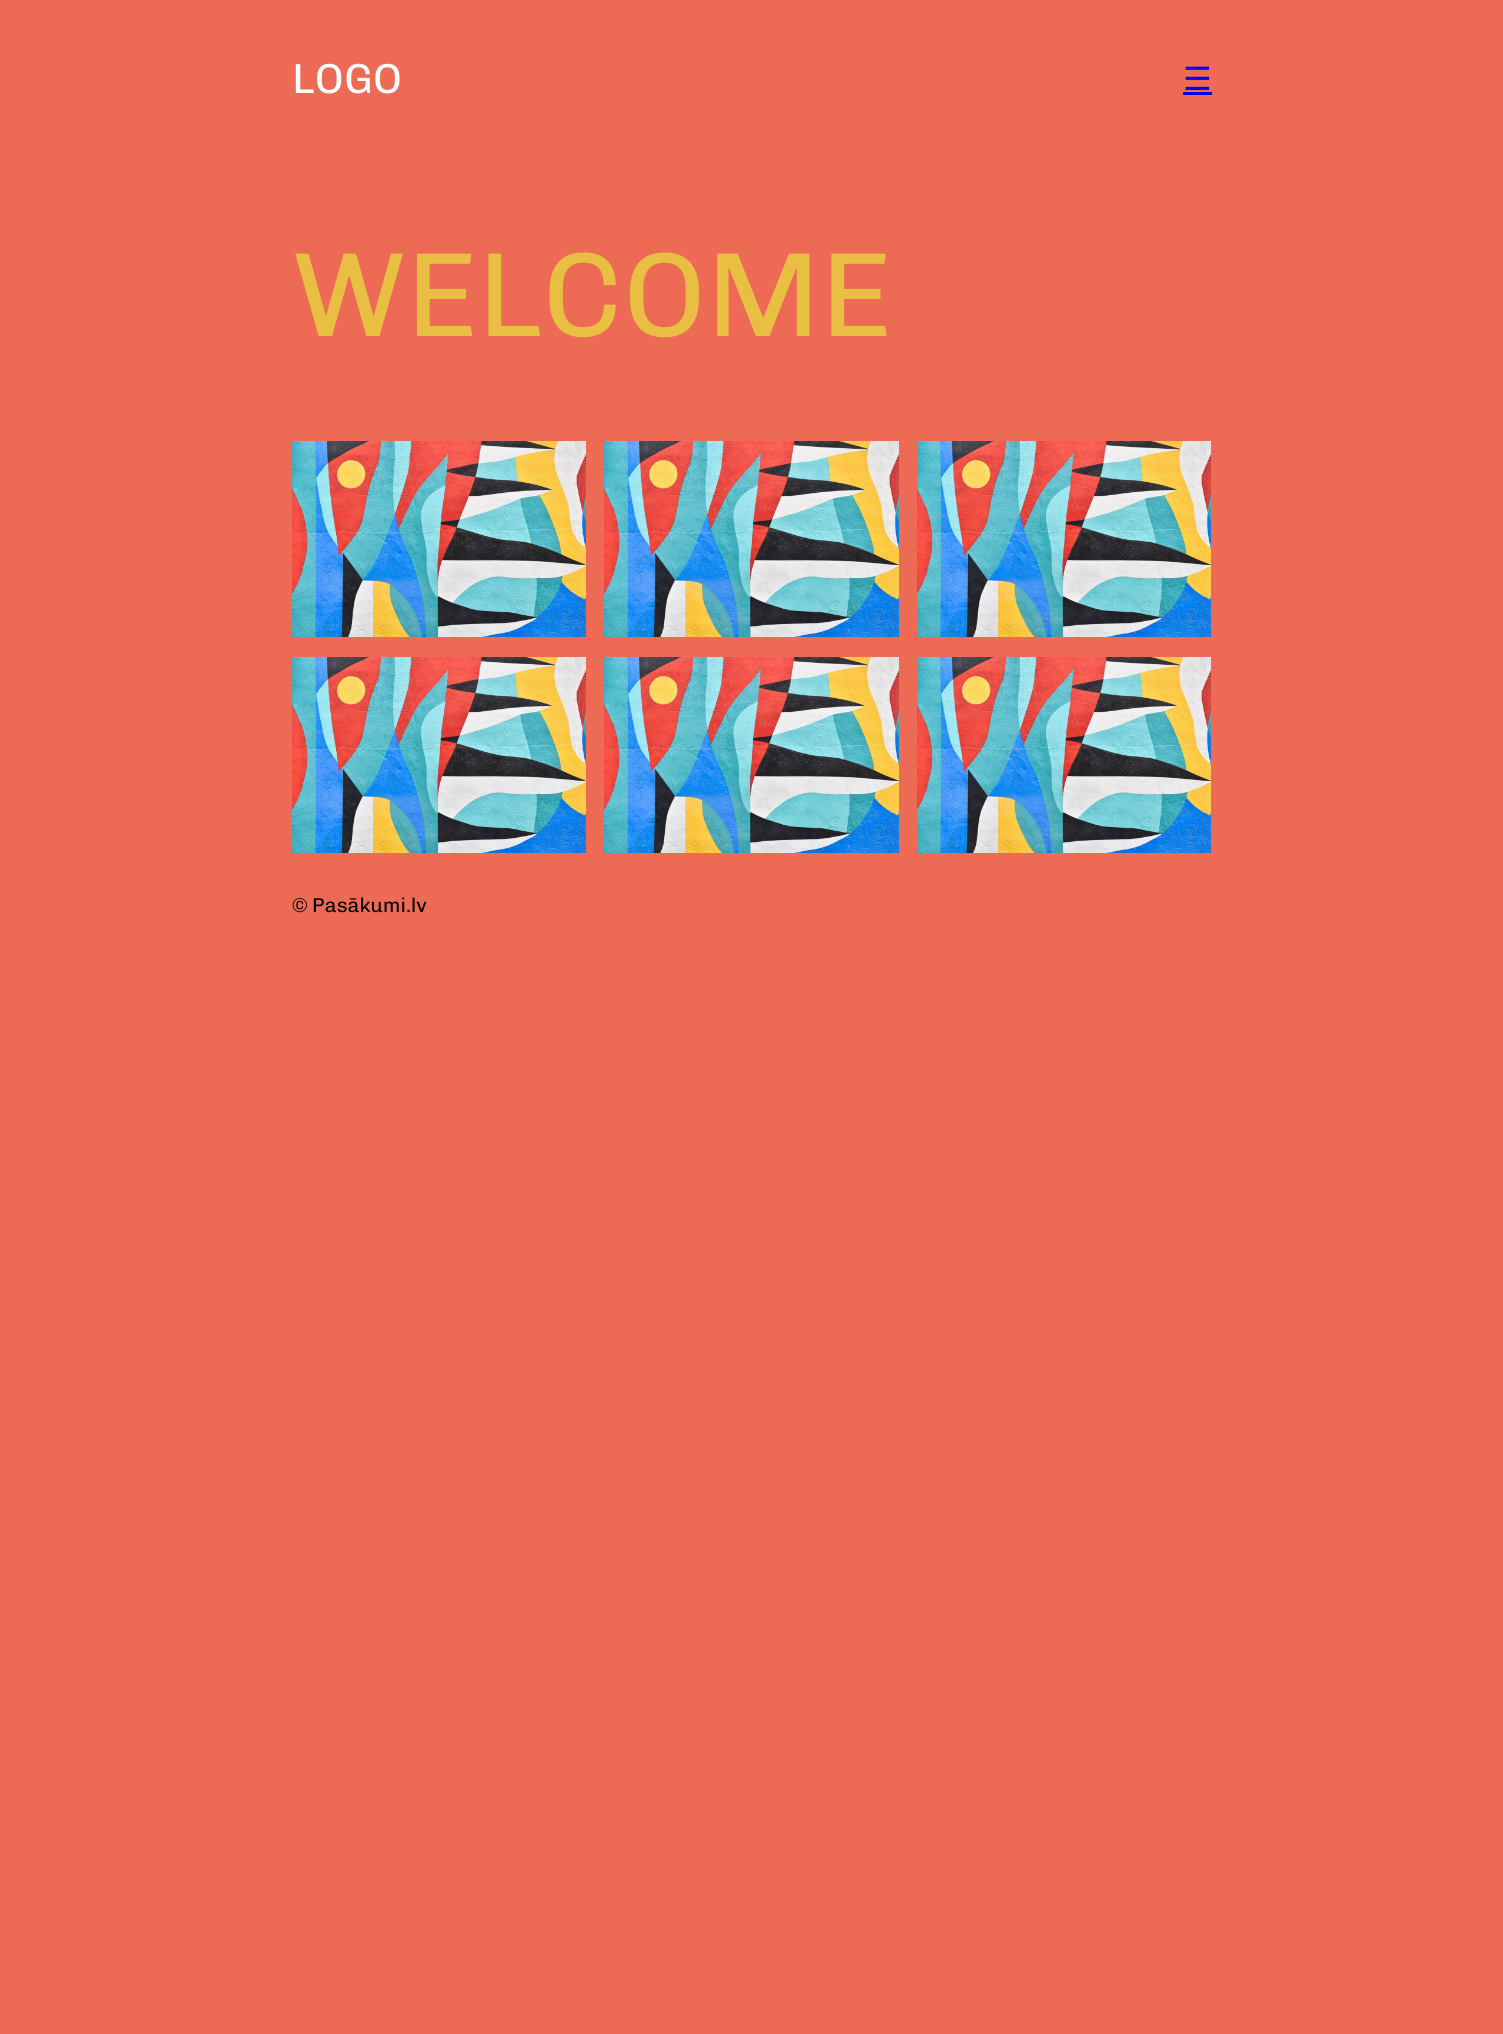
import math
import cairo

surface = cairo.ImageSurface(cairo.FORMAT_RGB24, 1503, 2034)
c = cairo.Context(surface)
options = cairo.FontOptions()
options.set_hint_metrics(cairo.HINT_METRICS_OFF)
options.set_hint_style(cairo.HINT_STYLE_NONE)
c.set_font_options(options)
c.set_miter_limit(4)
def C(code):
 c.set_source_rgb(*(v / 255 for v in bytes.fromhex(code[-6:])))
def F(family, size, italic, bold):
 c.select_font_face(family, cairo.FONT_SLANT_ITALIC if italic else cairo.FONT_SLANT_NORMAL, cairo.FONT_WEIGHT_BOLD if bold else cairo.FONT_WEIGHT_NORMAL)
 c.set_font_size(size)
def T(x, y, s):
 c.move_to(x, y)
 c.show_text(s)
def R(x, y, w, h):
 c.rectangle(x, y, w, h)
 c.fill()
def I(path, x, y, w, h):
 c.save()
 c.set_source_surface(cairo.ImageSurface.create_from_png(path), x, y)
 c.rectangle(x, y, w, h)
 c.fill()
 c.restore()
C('ed6a54')
c.paint()
F('Chivo',42,0,0)
C('ffffff')
T(292,93,'LOGO')
F('DejaVu Sans',32,0,0)
C('0000ee')
T(1183,90,'☰')
R(1183,92,29,3)
F('Chivo',120,0,0)
C('e8be43')
T(292,336,'WELCOME')
I('1.png',292,441,294,196)
I('2.png',604,441,295,196)
I('1.png',917,441,294,196)
I('3.png',292,657,294,196)
I('4.png',604,657,295,196)
I('3.png',917,657,294,196)
F('Chivo',20,0,0)
C('000000')
T(292,912,'© Pasākumi.lv')
surface.write_to_png('o.png')
